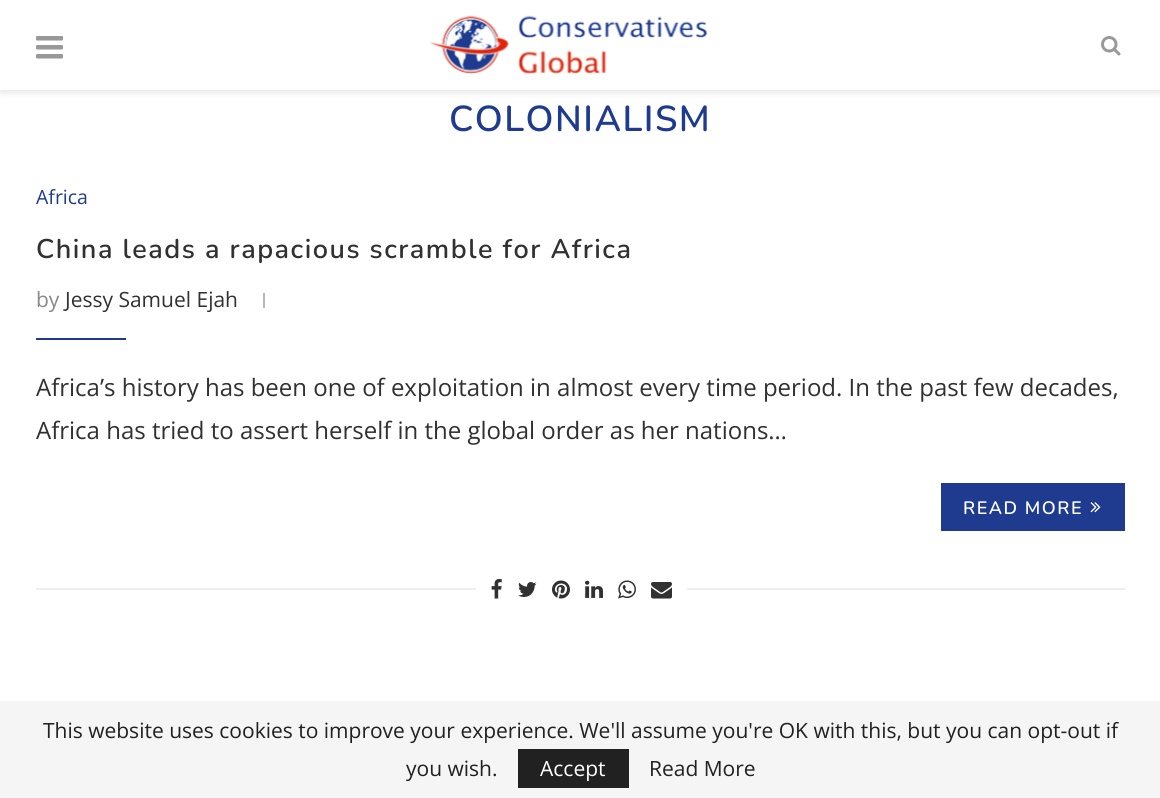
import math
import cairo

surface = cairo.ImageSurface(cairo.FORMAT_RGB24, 1160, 798)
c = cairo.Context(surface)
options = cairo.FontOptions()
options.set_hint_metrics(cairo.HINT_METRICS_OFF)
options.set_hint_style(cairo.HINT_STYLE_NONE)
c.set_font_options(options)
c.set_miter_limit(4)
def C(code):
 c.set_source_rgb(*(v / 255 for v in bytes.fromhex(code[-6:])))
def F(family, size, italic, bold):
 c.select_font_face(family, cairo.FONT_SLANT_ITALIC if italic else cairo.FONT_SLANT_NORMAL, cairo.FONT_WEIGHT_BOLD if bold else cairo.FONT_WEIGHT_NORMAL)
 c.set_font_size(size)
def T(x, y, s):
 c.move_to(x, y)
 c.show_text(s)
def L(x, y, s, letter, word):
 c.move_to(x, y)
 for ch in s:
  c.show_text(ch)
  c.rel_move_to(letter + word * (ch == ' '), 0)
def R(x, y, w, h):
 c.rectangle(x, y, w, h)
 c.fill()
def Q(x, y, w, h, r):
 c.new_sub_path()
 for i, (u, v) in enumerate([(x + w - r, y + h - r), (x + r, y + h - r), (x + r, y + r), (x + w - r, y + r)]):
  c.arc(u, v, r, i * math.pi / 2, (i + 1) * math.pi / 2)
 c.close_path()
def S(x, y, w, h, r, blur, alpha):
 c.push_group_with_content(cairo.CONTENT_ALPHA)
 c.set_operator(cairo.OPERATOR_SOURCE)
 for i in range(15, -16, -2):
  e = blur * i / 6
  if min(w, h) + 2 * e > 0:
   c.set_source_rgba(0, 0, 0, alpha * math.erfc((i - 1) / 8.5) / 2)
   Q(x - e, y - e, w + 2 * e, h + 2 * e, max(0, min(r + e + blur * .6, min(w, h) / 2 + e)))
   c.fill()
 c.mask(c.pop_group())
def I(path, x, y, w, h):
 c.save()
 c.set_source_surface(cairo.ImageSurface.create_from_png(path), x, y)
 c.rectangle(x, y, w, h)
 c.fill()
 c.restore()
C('ffffff')
c.paint()
c.save()
c.rectangle(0,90,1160,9)
c.clip()
C('bebebe')
S(0,2,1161,90,0,4,.46)
c.restore()
I('1.png',36,36,27,23)
I('2.png',429,15,279,59)
I('3.png',1101,36,20,20)
F('Nunito ExtraLight',36,0,0)
C('1e3b90')
L(449,131,'COLONIALISM',1.5,0)
F('Open Sans',19.5,0,0)
T(36,204,'Africa')
F('Nunito ExtraLight',27,0,0)
C('313131')
L(36,258,'China leads a rapacious scramble for Africa',1.5,0)
F('Open Sans',21,0,0)
C('888888')
T(36,307,'by')
C('313131')
T(65,307,'Jessy Samuel Ejah')
C('b8b8b8')
R(263,293,2,15)
C('1e3b90')
R(36,338,90,2)
F('Open Sans',24,0,0)
C('313131')
T(36,396,'Africa’s history has been one of exploitation in almost every time period. In the past few decades,')
T(36,439,'Africa has tried to assert herself in the global order as her nations…')
C('1e3b90')
R(941,483,184,48)
F('Nunito ExtraLight',18,0,0)
C('ffffff')
L(963,514,'READ MORE',1.5,0)
I('4.png',1090,502,11,11)
C('eeeeee')
R(36,588,1089,2)
C('ffffff')
R(476,588,211,2)
I('5.png',491,579,11,20)
I('6.png',518,582,19,15)
I('7.png',552,580,18,19)
I('8.png',585,580,18,18)
I('9.png',618,580,18,19)
I('10.png',651,582,21,17)
C('f5f5f5')
R(0,701,1160,97)
F('Open Sans',21,0,0)
C('212121')
T(43,738,'This website uses cookies to improve your experience. We\'ll assume you\'re OK with this, but you can opt-out if')
T(406,776,'you wish.')
R(518,749,111,39)
C('ffffff')
T(540,776,'Accept')
C('212121')
T(649,776,'Read More')
surface.write_to_png('o.png')
